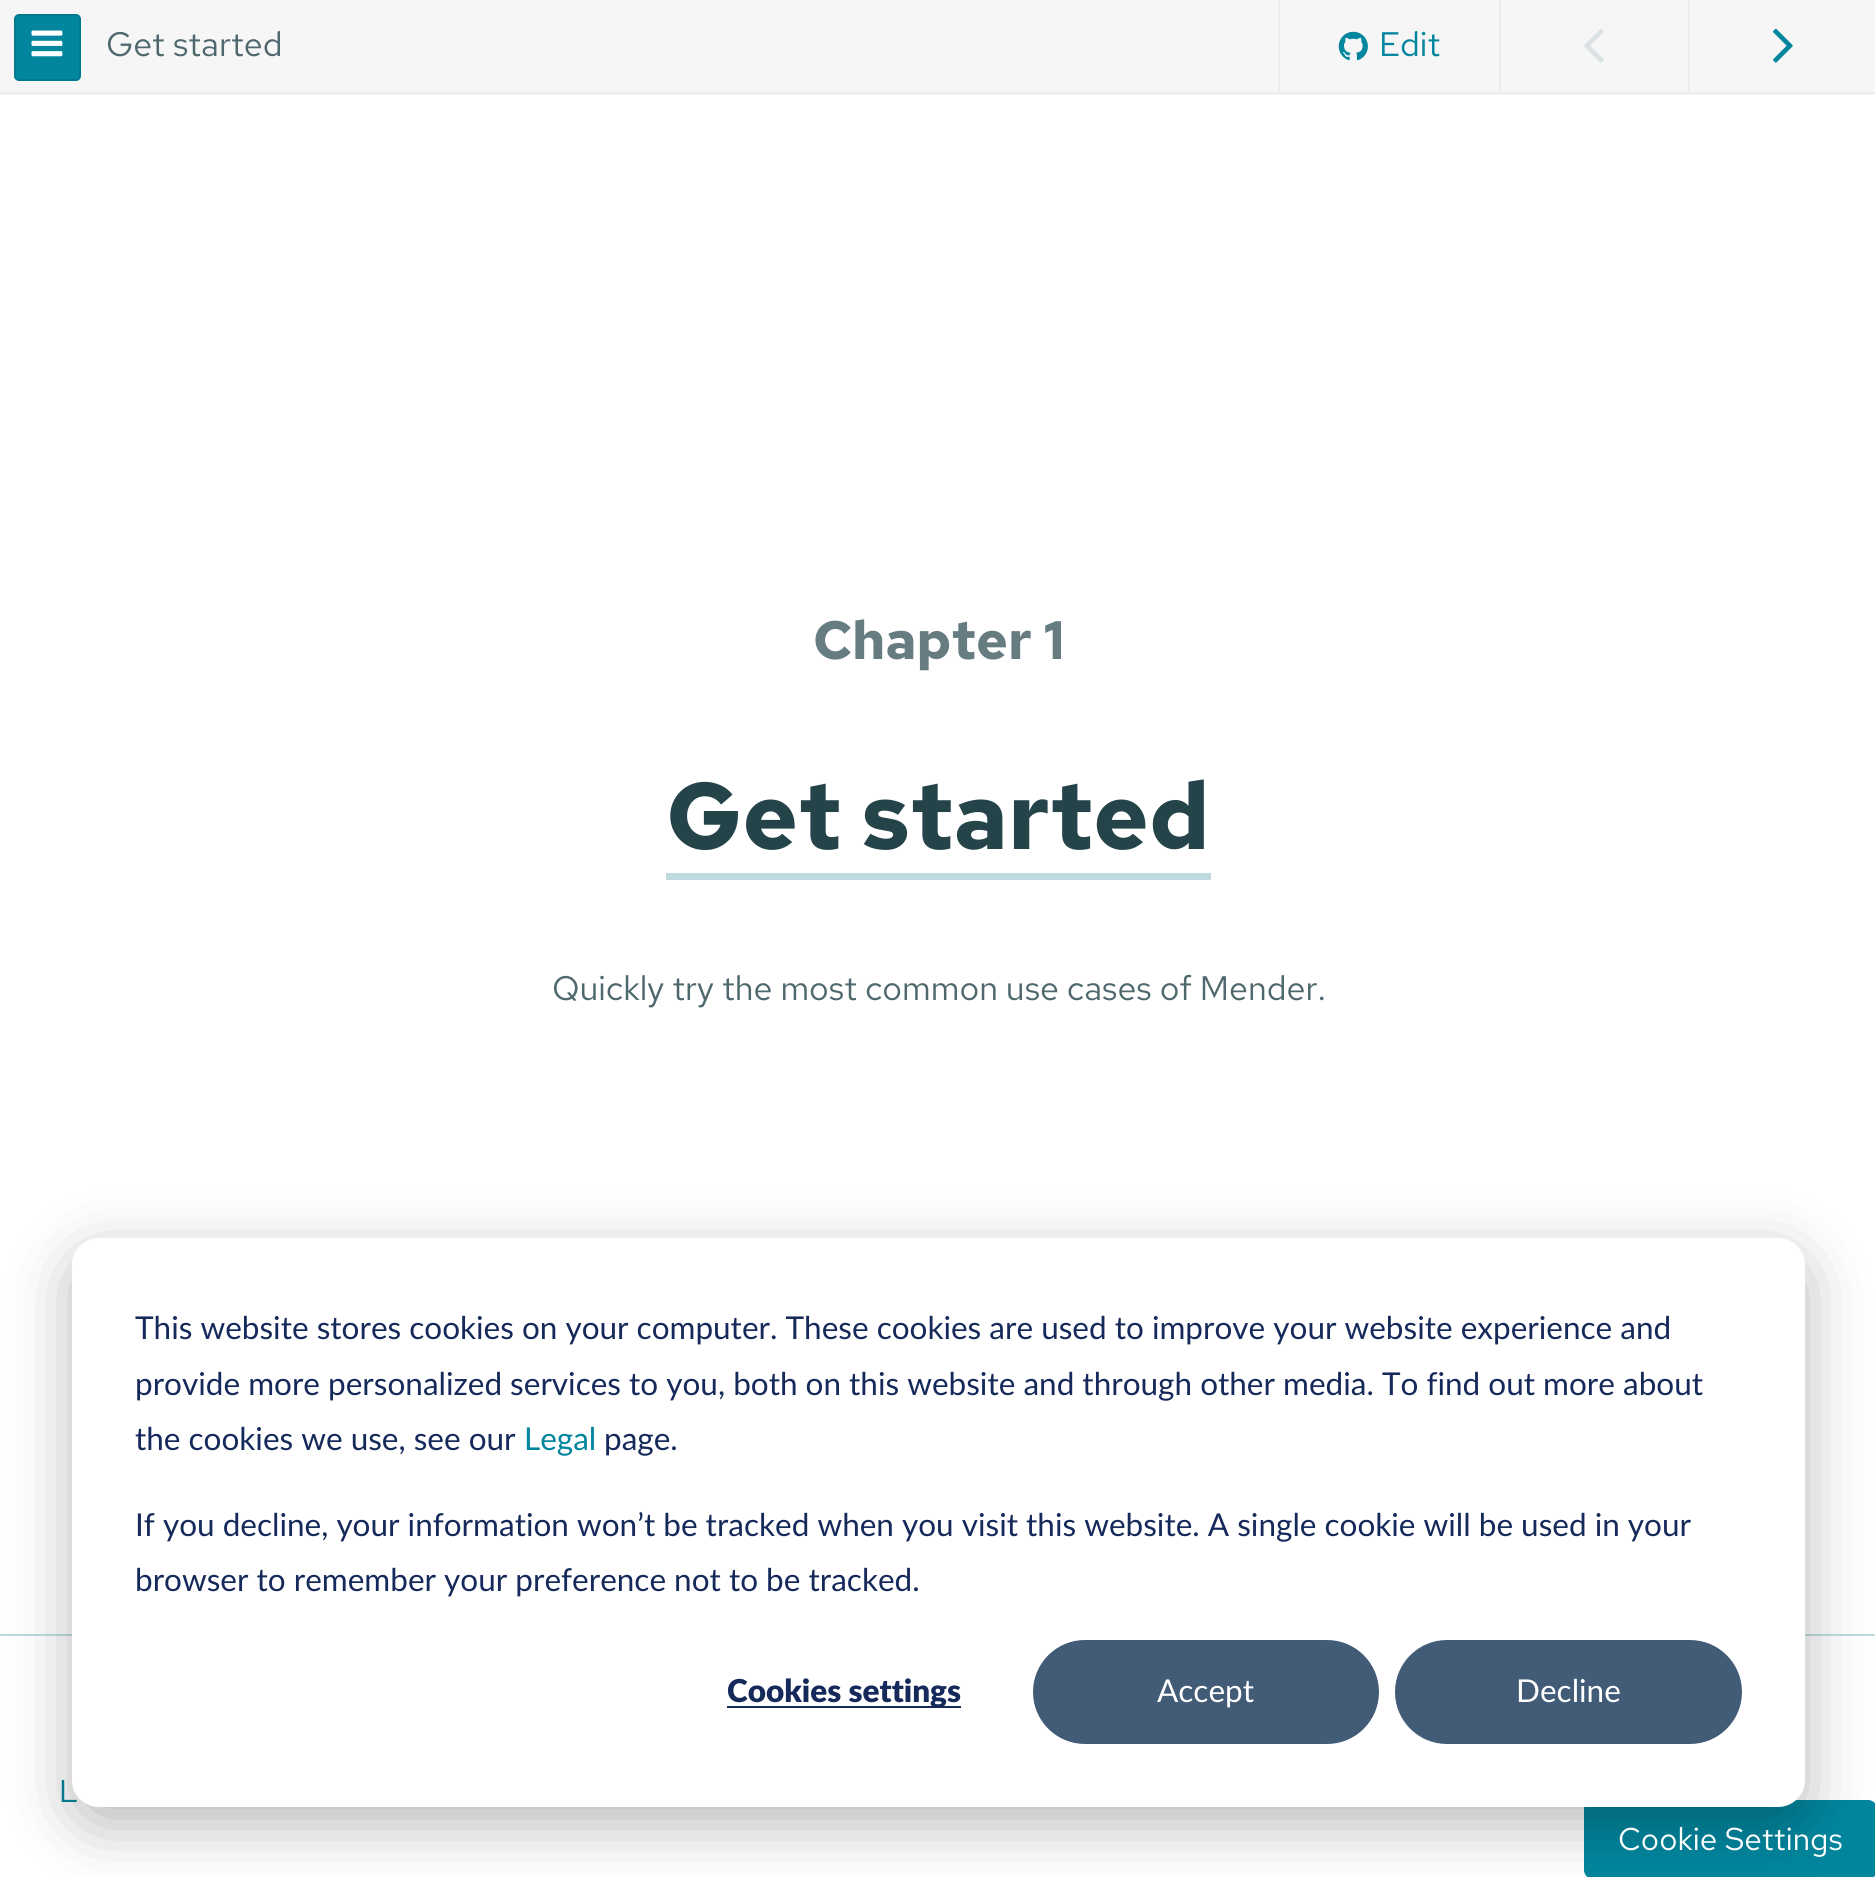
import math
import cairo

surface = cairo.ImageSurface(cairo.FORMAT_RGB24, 1875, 1877)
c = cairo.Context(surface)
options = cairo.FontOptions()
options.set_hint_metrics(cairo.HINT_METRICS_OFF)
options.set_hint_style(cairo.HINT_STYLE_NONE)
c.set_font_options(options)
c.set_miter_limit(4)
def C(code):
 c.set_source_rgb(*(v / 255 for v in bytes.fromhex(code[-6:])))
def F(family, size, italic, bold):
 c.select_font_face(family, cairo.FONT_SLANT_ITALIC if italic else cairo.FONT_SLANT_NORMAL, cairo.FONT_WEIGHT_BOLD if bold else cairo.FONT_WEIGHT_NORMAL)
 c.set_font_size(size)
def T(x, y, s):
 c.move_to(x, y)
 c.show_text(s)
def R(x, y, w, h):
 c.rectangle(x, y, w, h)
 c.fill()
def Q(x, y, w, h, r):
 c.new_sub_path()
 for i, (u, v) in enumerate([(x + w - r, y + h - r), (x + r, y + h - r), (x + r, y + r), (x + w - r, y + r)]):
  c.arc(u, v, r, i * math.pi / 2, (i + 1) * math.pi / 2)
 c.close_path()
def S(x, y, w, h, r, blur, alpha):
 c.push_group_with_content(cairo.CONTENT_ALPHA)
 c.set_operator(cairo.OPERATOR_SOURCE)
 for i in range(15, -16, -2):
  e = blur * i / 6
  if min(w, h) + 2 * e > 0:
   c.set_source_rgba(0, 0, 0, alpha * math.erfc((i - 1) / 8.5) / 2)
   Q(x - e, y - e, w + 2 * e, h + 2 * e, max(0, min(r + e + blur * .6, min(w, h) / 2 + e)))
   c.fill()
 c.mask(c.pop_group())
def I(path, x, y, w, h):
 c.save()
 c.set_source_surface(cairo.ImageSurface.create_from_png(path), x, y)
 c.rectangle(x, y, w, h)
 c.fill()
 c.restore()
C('ffffff')
c.paint()
C('f6f6f6')
R(0,0,1875,95)
C('01869e')
Q(15,15,65,65,4)
c.fill_preserve()
C('01798f')
c.stroke()
I('1.png',31,30,32,27)
C('ececec')
R(0,92,1875,2)
F('Red Hat Text',34,0,0)
C('4f686e')
T(106,56,'Get started')
C('ececec')
R(1278,0,2,92)
I('2.png',1338,31,30,30)
C('01869e')
T(1379,56,'Edit')
C('ececec')
R(1499,0,2,92)
I('3.png',1584,29,20,34)
R(1688,0,2,92)
I('4.png',1773,28,20,35)
F('Red Hat Text',54,0,1)
C('667c80')
T(813,659,'Chapter 1')
C('c0dbe0')
R(666,873,545,7)
F('Red Hat Text',94.5,0,1)
C('24444a')
T(666,849,'Get started')
F('Red Hat Text',34,0,0)
C('4f686e')
T(552,1000,'Quickly try the most common use cases of Mender.')
C('c0dbe0')
R(0,1634,1875,2)
F('Red Hat Text',31.5,0,0)
C('01869e')
T(59,1802,'L')
Q(1585,1801,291,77,8)
c.fill_preserve()
c.stroke()
C('000000')
S(72,1256,1733,569,27,31.5,.28)
C('ffffff')
Q(72,1238,1733,569,27)
c.fill()
F('Lato',31.5,0,0)
C('15295a')
T(135,1339,'This website stores cookies on your computer. These cookies are used to improve your website experience and')
T(135,1395,'provide more personalized services to you, both on this website and through other media. To find out more about')
T(135,1450,'the cookies we use, see our')
C('01869e')
T(524,1450,'Legal')
C('15295a')
T(604,1450,'page.')
T(135,1536,'If you decline, your information won’t be tracked when you visit this website. A single cookie will be used in your')
T(135,1591,'browser to remember your preference not to be tracked.')
R(727,1706,234,2)
F('Lato ExtraBold',31.5,0,0)
T(727,1702,'Cookies settings')
C('425b76')
Q(1034,1641,344,102,51)
c.fill_preserve()
c.stroke()
F('Lato',31.5,0,0)
C('ffffff')
T(1157,1702,'Accept')
C('425b76')
Q(1396,1641,345,102,51)
c.fill_preserve()
c.stroke()
C('ffffff')
T(1516,1702,'Decline')
F('Red Hat Text',31.5,0,0)
T(1618,1850,'Cookie Settings')
surface.write_to_png('o.png')
